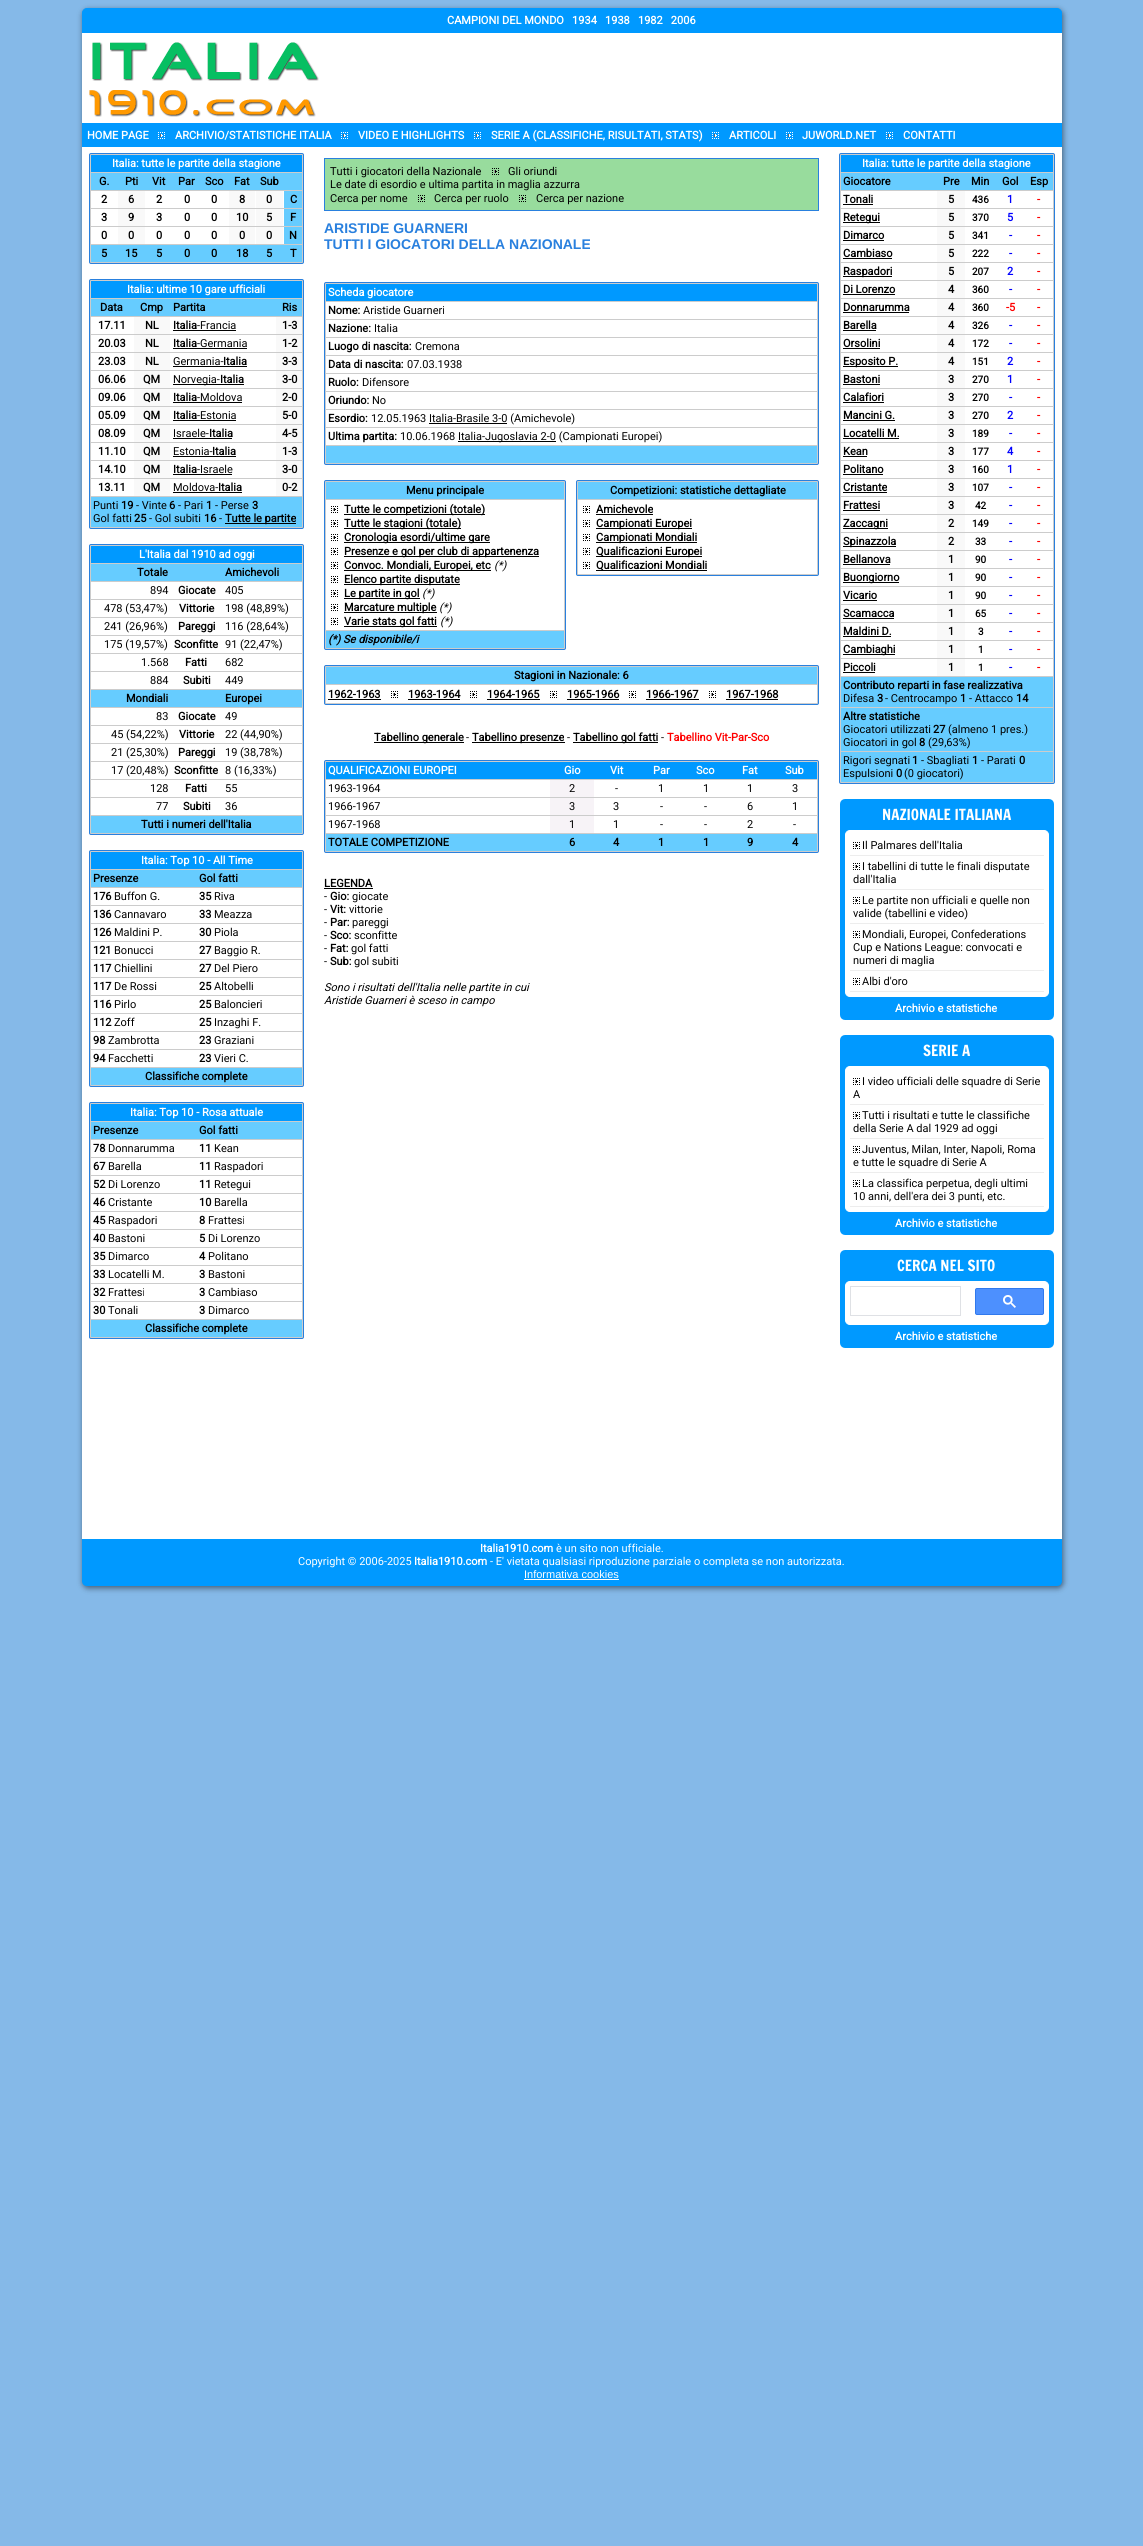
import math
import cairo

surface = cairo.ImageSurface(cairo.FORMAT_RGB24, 1143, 2546)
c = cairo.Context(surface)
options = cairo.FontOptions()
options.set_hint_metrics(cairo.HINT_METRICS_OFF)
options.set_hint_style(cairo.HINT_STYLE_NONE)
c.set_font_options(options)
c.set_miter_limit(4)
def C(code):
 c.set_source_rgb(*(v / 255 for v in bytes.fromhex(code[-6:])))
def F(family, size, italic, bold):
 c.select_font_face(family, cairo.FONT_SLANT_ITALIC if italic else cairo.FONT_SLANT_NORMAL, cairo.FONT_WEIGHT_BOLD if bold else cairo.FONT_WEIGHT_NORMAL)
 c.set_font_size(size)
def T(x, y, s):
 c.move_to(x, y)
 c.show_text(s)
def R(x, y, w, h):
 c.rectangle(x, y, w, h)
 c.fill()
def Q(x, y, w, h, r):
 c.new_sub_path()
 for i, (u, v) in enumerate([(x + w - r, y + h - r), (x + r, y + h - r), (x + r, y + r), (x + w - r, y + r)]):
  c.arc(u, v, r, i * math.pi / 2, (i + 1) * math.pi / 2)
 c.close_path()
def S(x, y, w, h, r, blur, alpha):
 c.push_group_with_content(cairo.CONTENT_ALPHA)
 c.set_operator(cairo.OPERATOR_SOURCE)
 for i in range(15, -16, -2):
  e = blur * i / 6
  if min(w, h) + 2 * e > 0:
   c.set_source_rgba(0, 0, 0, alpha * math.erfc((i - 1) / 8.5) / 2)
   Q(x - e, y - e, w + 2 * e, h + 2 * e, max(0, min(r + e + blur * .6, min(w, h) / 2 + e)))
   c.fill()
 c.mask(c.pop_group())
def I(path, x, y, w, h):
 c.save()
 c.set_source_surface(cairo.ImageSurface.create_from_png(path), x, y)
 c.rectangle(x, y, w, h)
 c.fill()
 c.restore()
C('85b9e8')
c.paint()
C('000000')
S(83,10,980,1578,5,3,.5)
C('0099ff')
c.new_path()
c.move_to(87,8.5)
c.line_to(1057,8.5)
c.curve_to(1059.5,8.5,1061.5,10.5,1061.5,13)
c.line_to(1061.5,32.5)
c.line_to(82.5,32.5)
c.line_to(82.5,13)
c.curve_to(82.5,10.5,84.5,8.5,87,8.5)
c.close_path()
c.fill_preserve()
c.set_line_width(1)
c.stroke()
F('Roboto',11,0,1)
C('ffffff')
T(447,24,'CAMPIONI DEL MONDO   1934   1938   1982   2006')
R(82,33,980,90)
I('1.png',89,42,230,75)
C('0099ff')
R(82,123,980,24)
C('ffffff')
T(87,139,'HOME PAGE')
I('2.png',158,132,7,7)
T(175,139,'ARCHIVIO/STATISTICHE ITALIA')
I('2.png',341,132,7,7)
T(358,139,'VIDEO E HIGHLIGHTS')
I('2.png',474,132,7,7)
T(491,139,'SERIE A (CLASSIFICHE, RISULTATI, STATS)')
I('2.png',712,132,7,7)
T(729,139,'ARTICOLI')
I('2.png',786,132,7,7)
T(802,139,'JUWORLD.NET')
I('2.png',886,132,7,7)
T(903,139,'CONTATTI')
R(82,147,980,1392)
C('cccccc')
Q(89.5,153.5,214,110,1.5)
c.fill_preserve()
C('2980de')
c.stroke()
C('0099ff')
R(91,155,211,17)
C('ffffff')
T(112,167,'Italia: tutte le partite della stagione')
C('66ccff')
R(91,173,211,17)
C('000000')
T(99,185,'G.')
T(125,185,'Pti')
T(152,185,'Vit')
T(178,185,'Par')
T(205,185,'Sco')
T(234,185,'Fat')
T(260,185,'Sub')
C('ffffff')
R(91,191,193,17)
C('000000')
T(101,203,'2')
C('f9f9f9')
R(118,191,27,17)
C('000000')
T(128,203,'6')
T(156,203,'2')
T(184,203,'0')
T(211,203,'0')
C('f9f9f9')
R(229,191,26,17)
C('000000')
T(239,203,'8')
C('f9f9f9')
R(256,191,27,17)
C('000000')
T(266,203,'0')
C('66ccff')
R(284,191,18,17)
C('000000')
T(290,203,'C')
C('ffffff')
R(91,209,193,17)
C('000000')
T(101,221,'3')
C('f9f9f9')
R(118,209,27,17)
C('000000')
T(128,221,'9')
T(156,221,'3')
T(184,221,'0')
T(211,221,'0')
C('f9f9f9')
R(229,209,26,17)
C('000000')
T(236,221,'10')
C('f9f9f9')
R(256,209,27,17)
C('000000')
T(266,221,'5')
C('66ccff')
R(284,209,18,17)
C('000000')
T(290,221,'F')
C('ffffff')
R(91,227,193,17)
C('000000')
T(101,239,'0')
C('f9f9f9')
R(118,227,27,17)
C('000000')
T(128,239,'0')
T(156,239,'0')
T(184,239,'0')
T(211,239,'0')
C('f9f9f9')
R(229,227,26,17)
C('000000')
T(239,239,'0')
C('f9f9f9')
R(256,227,27,17)
C('000000')
T(266,239,'0')
C('66ccff')
R(284,227,18,17)
C('000000')
T(289,239,'N')
C('66ccff')
R(91,245,211,17)
C('000000')
T(101,257,'5')
T(125,257,'15')
T(156,257,'5')
T(184,257,'0')
T(211,257,'0')
T(236,257,'18')
T(266,257,'5')
T(290,257,'T')
C('cccccc')
Q(89.5,279.5,214,249,1.5)
c.fill_preserve()
C('2980de')
c.stroke()
C('0099ff')
R(91,281,211,17)
C('ffffff')
T(127,293,'Italia: ultime 10 gare ufficiali')
C('66ccff')
R(91,299,211,17)
C('000000')
T(100,311,'Data')
T(140,311,'Cmp')
T(173,311,'Partita')
T(282,311,'Ris')
C('ffffff')
R(91,317,185,17)
C('000000')
T(98,329,'17.11')
C('f9f9f9')
R(134,317,36,17)
C('000000')
T(145,329,'NL')
T(173,329,'Italia')
F('Roboto',11,0,0)
T(197,329,'-Francia')
R(173,330,63,1)
C('f9f9f9')
R(276,317,26,17)
F('Roboto',11,0,1)
C('000000')
T(282,329,'1-3')
C('ffffff')
R(91,335,185,17)
C('000000')
T(98,347,'20.03')
C('f9f9f9')
R(134,335,36,17)
C('000000')
T(145,347,'NL')
T(173,347,'Italia')
F('Roboto',11,0,0)
T(197,347,'-Germania')
R(173,348,74,1)
C('f9f9f9')
R(276,335,26,17)
F('Roboto',11,0,1)
C('000000')
T(282,347,'1-2')
C('ffffff')
R(91,353,185,17)
C('000000')
T(98,365,'23.03')
C('f9f9f9')
R(134,353,36,17)
C('000000')
T(145,365,'NL')
F('Roboto',11,0,0)
T(173,365,'Germania-')
R(173,366,74,1)
F('Roboto',11,0,1)
T(223,365,'Italia')
C('f9f9f9')
R(276,353,26,17)
C('000000')
T(282,365,'3-3')
C('ffffff')
R(91,371,185,17)
C('000000')
T(98,383,'06.06')
C('f9f9f9')
R(134,371,36,17)
C('000000')
T(143,383,'QM')
R(173,384,71,1)
F('Roboto',11,0,0)
T(173,383,'Norvegia-')
F('Roboto',11,0,1)
T(220,383,'Italia')
C('f9f9f9')
R(276,371,26,17)
C('000000')
T(282,383,'3-0')
C('ffffff')
R(91,389,185,17)
C('000000')
T(98,401,'09.06')
C('f9f9f9')
R(134,389,36,17)
C('000000')
T(143,401,'QM')
T(173,401,'Italia')
R(173,402,69,1)
F('Roboto',11,0,0)
T(197,401,'-Moldova')
C('f9f9f9')
R(276,389,26,17)
F('Roboto',11,0,1)
C('000000')
T(282,401,'2-0')
C('ffffff')
R(91,407,185,17)
C('000000')
T(98,419,'05.09')
C('f9f9f9')
R(134,407,36,17)
C('000000')
T(143,419,'QM')
T(173,419,'Italia')
F('Roboto',11,0,0)
T(197,419,'-Estonia')
R(173,420,63,1)
C('f9f9f9')
R(276,407,26,17)
F('Roboto',11,0,1)
C('000000')
T(282,419,'5-0')
C('ffffff')
R(91,425,185,17)
C('000000')
T(98,437,'08.09')
C('f9f9f9')
R(134,425,36,17)
C('000000')
T(143,437,'QM')
F('Roboto',11,0,0)
T(173,437,'Israele-')
R(173,438,59,1)
F('Roboto',11,0,1)
T(209,437,'Italia')
C('f9f9f9')
R(276,425,26,17)
C('000000')
T(282,437,'4-5')
C('ffffff')
R(91,443,185,17)
C('000000')
T(98,455,'11.10')
C('f9f9f9')
R(134,443,36,17)
C('000000')
T(143,455,'QM')
F('Roboto',11,0,0)
T(173,455,'Estonia-')
R(173,456,63,1)
F('Roboto',11,0,1)
T(212,455,'Italia')
C('f9f9f9')
R(276,443,26,17)
C('000000')
T(282,455,'1-3')
C('ffffff')
R(91,461,185,17)
C('000000')
T(98,473,'14.10')
C('f9f9f9')
R(134,461,36,17)
C('000000')
T(143,473,'QM')
T(173,473,'Italia')
R(173,474,59,1)
F('Roboto',11,0,0)
T(197,473,'-Israele')
C('f9f9f9')
R(276,461,26,17)
F('Roboto',11,0,1)
C('000000')
T(282,473,'3-0')
C('ffffff')
R(91,479,185,17)
C('000000')
T(98,491,'13.11')
C('f9f9f9')
R(134,479,36,17)
C('000000')
T(143,491,'QM')
F('Roboto',11,0,0)
T(173,491,'Moldova-')
R(173,492,69,1)
F('Roboto',11,0,1)
T(218,491,'Italia')
C('f9f9f9')
R(276,479,26,17)
C('000000')
T(282,491,'0-2')
C('66ccff')
R(91,497,211,30)
F('Roboto',11,0,0)
C('000000')
T(93,509,'Punti')
F('Roboto',11,0,1)
T(121,509,'19')
F('Roboto',11,0,0)
T(136,509,'- Vinte')
F('Roboto',11,0,1)
T(169,509,'6')
F('Roboto',11,0,0)
T(178,509,'- Pari')
F('Roboto',11,0,1)
T(206,509,'1')
F('Roboto',11,0,0)
T(215,509,'- Perse')
F('Roboto',11,0,1)
T(252,509,'3')
F('Roboto',11,0,0)
T(93,522,'Gol fatti')
F('Roboto',11,0,1)
T(134,522,'25')
F('Roboto',11,0,0)
T(149,522,'- Gol subiti')
F('Roboto',11,0,1)
T(204,522,'16')
F('Roboto',11,0,0)
T(219,522,'-')
R(225,523,71,1)
F('Roboto',11,0,1)
T(225,522,'Tutte le partite')
C('cccccc')
Q(89.5,544.5,214,290,1.5)
c.fill_preserve()
C('2980de')
c.stroke()
C('0099ff')
R(91,546,211,17)
C('ffffff')
T(139,558,'L\'Italia dal 1910 ad oggi')
C('66ccff')
R(91,564,211,17)
C('000000')
T(137,576,'Totale')
T(225,576,'Amichevoli')
C('ffffff')
R(91,582,211,17)
F('Roboto',11,0,0)
C('000000')
T(150,594,'894')
F('Roboto',11,0,1)
T(178,594,'Giocate')
F('Roboto',11,0,0)
T(225,594,'405')
C('ffffff')
R(91,600,211,17)
C('000000')
T(104,612,'478 (53,47%)')
F('Roboto',11,0,1)
T(179,612,'Vittorie')
F('Roboto',11,0,0)
T(225,612,'198 (48,89%)')
C('ffffff')
R(91,618,211,17)
C('000000')
T(104,630,'241 (26,96%)')
F('Roboto',11,0,1)
T(178,630,'Pareggi')
F('Roboto',11,0,0)
T(225,630,'116 (28,64%)')
C('ffffff')
R(91,636,211,17)
C('000000')
T(104,648,'175 (19,57%)')
F('Roboto',11,0,1)
T(174,648,'Sconfitte')
F('Roboto',11,0,0)
T(225,648,'91 (22,47%)')
C('ffffff')
R(91,654,211,17)
C('000000')
T(141,666,'1.568')
F('Roboto',11,0,1)
T(185,666,'Fatti')
F('Roboto',11,0,0)
T(225,666,'682')
C('ffffff')
R(91,672,211,17)
C('000000')
T(150,684,'884')
F('Roboto',11,0,1)
T(183,684,'Subiti')
F('Roboto',11,0,0)
T(225,684,'449')
C('66ccff')
R(91,690,211,17)
F('Roboto',11,0,1)
C('000000')
T(126,702,'Mondiali')
T(225,702,'Europei')
C('ffffff')
R(91,708,211,17)
F('Roboto',11,0,0)
C('000000')
T(156,720,'83')
F('Roboto',11,0,1)
T(178,720,'Giocate')
F('Roboto',11,0,0)
T(225,720,'49')
C('ffffff')
R(91,726,211,17)
C('000000')
T(111,738,'45 (54,22%)')
F('Roboto',11,0,1)
T(179,738,'Vittorie')
F('Roboto',11,0,0)
T(225,738,'22 (44,90%)')
C('ffffff')
R(91,744,211,17)
C('000000')
T(111,756,'21 (25,30%)')
F('Roboto',11,0,1)
T(178,756,'Pareggi')
F('Roboto',11,0,0)
T(225,756,'19 (38,78%)')
C('ffffff')
R(91,762,211,17)
C('000000')
T(111,774,'17 (20,48%)')
F('Roboto',11,0,1)
T(174,774,'Sconfitte')
F('Roboto',11,0,0)
T(225,774,'8 (16,33%)')
C('ffffff')
R(91,780,211,17)
C('000000')
T(150,792,'128')
F('Roboto',11,0,1)
T(185,792,'Fatti')
F('Roboto',11,0,0)
T(225,792,'55')
C('ffffff')
R(91,798,211,17)
C('000000')
T(156,810,'77')
F('Roboto',11,0,1)
T(183,810,'Subiti')
F('Roboto',11,0,0)
T(225,810,'36')
C('66ccff')
R(91,816,211,17)
F('Roboto',11,0,1)
C('000000')
T(141,828,'Tutti i numeri dell\'Italia')
C('cccccc')
Q(89.5,850.5,214,236,1.5)
c.fill_preserve()
C('2980de')
c.stroke()
C('0099ff')
R(91,852,211,17)
C('ffffff')
T(141,864,'Italia: Top 10 - All Time')
C('66ccff')
R(91,870,211,17)
C('000000')
T(93,882,'Presenze')
T(199,882,'Gol fatti')
C('ffffff')
R(91,888,211,17)
C('000000')
T(93,900,'176')
F('Roboto',11,0,0)
T(114,900,'Buffon G.')
F('Roboto',11,0,1)
T(199,900,'35')
F('Roboto',11,0,0)
T(214,900,'Riva')
C('ffffff')
R(91,906,211,17)
F('Roboto',11,0,1)
C('000000')
T(93,918,'136')
F('Roboto',11,0,0)
T(114,918,'Cannavaro')
F('Roboto',11,0,1)
T(199,918,'33')
F('Roboto',11,0,0)
T(214,918,'Meazza')
C('ffffff')
R(91,924,211,17)
F('Roboto',11,0,1)
C('000000')
T(93,936,'126')
F('Roboto',11,0,0)
T(114,936,'Maldini P.')
F('Roboto',11,0,1)
T(199,936,'30')
F('Roboto',11,0,0)
T(214,936,'Piola')
C('ffffff')
R(91,942,211,17)
F('Roboto',11,0,1)
C('000000')
T(93,954,'121')
F('Roboto',11,0,0)
T(114,954,'Bonucci')
F('Roboto',11,0,1)
T(199,954,'27')
F('Roboto',11,0,0)
T(214,954,'Baggio R.')
C('ffffff')
R(91,960,211,17)
F('Roboto',11,0,1)
C('000000')
T(93,972,'117')
F('Roboto',11,0,0)
T(114,972,'Chiellini')
F('Roboto',11,0,1)
T(199,972,'27')
F('Roboto',11,0,0)
T(214,972,'Del Piero')
C('ffffff')
R(91,978,211,17)
F('Roboto',11,0,1)
C('000000')
T(93,990,'117')
F('Roboto',11,0,0)
T(114,990,'De Rossi')
F('Roboto',11,0,1)
T(199,990,'25')
F('Roboto',11,0,0)
T(214,990,'Altobelli')
C('ffffff')
R(91,996,211,17)
F('Roboto',11,0,1)
C('000000')
T(93,1008,'116')
F('Roboto',11,0,0)
T(114,1008,'Pirlo')
F('Roboto',11,0,1)
T(199,1008,'25')
F('Roboto',11,0,0)
T(214,1008,'Baloncieri')
C('ffffff')
R(91,1014,211,17)
F('Roboto',11,0,1)
C('000000')
T(93,1026,'112')
F('Roboto',11,0,0)
T(114,1026,'Zoff')
F('Roboto',11,0,1)
T(199,1026,'25')
F('Roboto',11,0,0)
T(214,1026,'Inzaghi F.')
C('ffffff')
R(91,1032,211,17)
F('Roboto',11,0,1)
C('000000')
T(93,1044,'98')
F('Roboto',11,0,0)
T(108,1044,'Zambrotta')
F('Roboto',11,0,1)
T(199,1044,'23')
F('Roboto',11,0,0)
T(214,1044,'Graziani')
C('ffffff')
R(91,1050,211,17)
F('Roboto',11,0,1)
C('000000')
T(93,1062,'94')
F('Roboto',11,0,0)
T(108,1062,'Facchetti')
F('Roboto',11,0,1)
T(199,1062,'23')
F('Roboto',11,0,0)
T(214,1062,'Vieri C.')
C('66ccff')
R(91,1068,211,17)
F('Roboto',11,0,1)
C('000000')
T(145,1080,'Classifiche complete')
C('cccccc')
Q(89.5,1102.5,214,236,1.5)
c.fill_preserve()
C('2980de')
c.stroke()
C('0099ff')
R(91,1104,211,17)
C('ffffff')
T(130,1116,'Italia: Top 10 - Rosa attuale')
C('66ccff')
R(91,1122,211,17)
C('000000')
T(93,1134,'Presenze')
T(199,1134,'Gol fatti')
C('ffffff')
R(91,1140,211,17)
C('000000')
T(93,1152,'78')
F('Roboto',11,0,0)
T(108,1152,'Donnarumma')
F('Roboto',11,0,1)
T(199,1152,'11')
F('Roboto',11,0,0)
T(214,1152,'Kean')
C('ffffff')
R(91,1158,211,17)
F('Roboto',11,0,1)
C('000000')
T(93,1170,'67')
F('Roboto',11,0,0)
T(108,1170,'Barella')
F('Roboto',11,0,1)
T(199,1170,'11')
F('Roboto',11,0,0)
T(214,1170,'Raspadori')
C('ffffff')
R(91,1176,211,17)
F('Roboto',11,0,1)
C('000000')
T(93,1188,'52')
F('Roboto',11,0,0)
T(108,1188,'Di Lorenzo')
F('Roboto',11,0,1)
T(199,1188,'11')
F('Roboto',11,0,0)
T(214,1188,'Retegui')
C('ffffff')
R(91,1194,211,17)
F('Roboto',11,0,1)
C('000000')
T(93,1206,'46')
F('Roboto',11,0,0)
T(108,1206,'Cristante')
F('Roboto',11,0,1)
T(199,1206,'10')
F('Roboto',11,0,0)
T(214,1206,'Barella')
C('ffffff')
R(91,1212,211,17)
F('Roboto',11,0,1)
C('000000')
T(93,1224,'45')
F('Roboto',11,0,0)
T(108,1224,'Raspadori')
F('Roboto',11,0,1)
T(199,1224,'8')
F('Roboto',11,0,0)
T(208,1224,'Frattesi')
C('ffffff')
R(91,1230,211,17)
F('Roboto',11,0,1)
C('000000')
T(93,1242,'40')
F('Roboto',11,0,0)
T(108,1242,'Bastoni')
F('Roboto',11,0,1)
T(199,1242,'5')
F('Roboto',11,0,0)
T(208,1242,'Di Lorenzo')
C('ffffff')
R(91,1248,211,17)
F('Roboto',11,0,1)
C('000000')
T(93,1260,'35')
F('Roboto',11,0,0)
T(108,1260,'Dimarco')
F('Roboto',11,0,1)
T(199,1260,'4')
F('Roboto',11,0,0)
T(208,1260,'Politano')
C('ffffff')
R(91,1266,211,17)
F('Roboto',11,0,1)
C('000000')
T(93,1278,'33')
F('Roboto',11,0,0)
T(108,1278,'Locatelli M.')
F('Roboto',11,0,1)
T(199,1278,'3')
F('Roboto',11,0,0)
T(208,1278,'Bastoni')
C('ffffff')
R(91,1284,211,17)
F('Roboto',11,0,1)
C('000000')
T(93,1296,'32')
F('Roboto',11,0,0)
T(108,1296,'Frattesi')
F('Roboto',11,0,1)
T(199,1296,'3')
F('Roboto',11,0,0)
T(208,1296,'Cambiaso')
C('ffffff')
R(91,1302,211,17)
F('Roboto',11,0,1)
C('000000')
T(93,1314,'30')
F('Roboto',11,0,0)
T(108,1314,'Tonali')
F('Roboto',11,0,1)
T(199,1314,'3')
F('Roboto',11,0,0)
T(208,1314,'Dimarco')
C('66ccff')
R(91,1320,211,17)
F('Roboto',11,0,1)
C('000000')
T(145,1332,'Classifiche complete')
C('98dc9d')
c.rectangle(324.5,158.5,494,52)
c.fill_preserve()
C('2980de')
c.stroke()
F('Roboto',11,0,0)
C('000000')
T(330,175,'Tutti i giocatori della Nazionale')
I('3.png',492,168,7,7)
T(508,175,'Gli oriundi')
T(330,188,'Le date di esordio e ultima partita in maglia azzurra')
T(330,202,'Cerca per nome')
I('3.png',418,195,7,7)
T(434,202,'Cerca per ruolo')
I('3.png',519,195,7,7)
T(536,202,'Cerca per nazione')
F('Liberation Sans',14,0,1)
C('2980de')
T(324,233,'ARISTIDE GUARNERI')
T(324,249,'TUTTI I GIOCATORI DELLA NAZIONALE')
C('cccccc')
Q(324.5,282.5,494,182,1.5)
c.fill_preserve()
C('2980de')
c.stroke()
C('0099ff')
R(326,284,491,17)
F('Roboto',11,0,1)
C('ffffff')
T(328,296,'Scheda giocatore')
R(326,302,491,17)
C('000000')
T(328,314,'Nome:')
F('Roboto',11,0,0)
T(363,314,'Aristide Guarneri')
C('ffffff')
R(326,320,491,17)
F('Roboto',11,0,1)
C('000000')
T(328,332,'Nazione:')
F('Roboto',11,0,0)
T(374,332,'Italia')
C('ffffff')
R(326,338,491,17)
F('Roboto',11,0,1)
C('000000')
T(328,350,'Luogo di nascita:')
F('Roboto',11,0,0)
T(415,350,'Cremona')
C('ffffff')
R(326,356,491,17)
F('Roboto',11,0,1)
C('000000')
T(328,368,'Data di nascita:')
F('Roboto',11,0,0)
T(407,368,'07.03.1938')
C('ffffff')
R(326,374,491,17)
F('Roboto',11,0,1)
C('000000')
T(328,386,'Ruolo:')
F('Roboto',11,0,0)
T(362,386,'Difensore')
C('ffffff')
R(326,392,491,17)
F('Roboto',11,0,1)
C('000000')
T(328,404,'Oriundo:')
F('Roboto',11,0,0)
T(372,404,'No')
C('ffffff')
R(326,410,491,17)
F('Roboto',11,0,1)
C('000000')
T(328,422,'Esordio:')
F('Roboto',11,0,0)
T(371,422,'12.05.1963 Italia-Brasile 3-0 (Amichevole)')
R(429,423,78,1)
C('ffffff')
R(326,428,491,17)
F('Roboto',11,0,1)
C('000000')
T(328,440,'Ultima partita:')
F('Roboto',11,0,0)
T(400,440,'10.06.1968')
R(458,441,98,1)
T(458,440,'Italia-Jugoslavia 2-0 (Campionati Europei)')
C('66ccff')
R(326,446,491,17)
C('cccccc')
Q(324.5,480.5,241,169,1.5)
c.fill_preserve()
C('2980de')
c.stroke()
C('66ccff')
R(326,482,238,17)
F('Roboto',11,0,1)
C('000000')
T(406,494,'Menu principale')
C('ffffff')
R(326,500,238,130)
I('4.png',331,506,7,7)
C('000000')
R(344,514,141,1)
T(344,513,'Tutte le competizioni (totale)')
I('4.png',331,520,7,7)
R(344,528,117,1)
T(344,527,'Tutte le stagioni (totale)')
I('4.png',331,534,7,7)
R(344,542,146,1)
T(344,541,'Cronologia esordi/ultime gare')
I('4.png',331,548,7,7)
R(344,556,195,1)
T(344,555,'Presenze e gol per club di appartenenza')
I('4.png',331,562,7,7)
R(344,570,147,1)
T(344,569,'Convoc. Mondiali, Europei, etc')
F('Roboto',11,1,0)
T(494,569,'(*)')
I('4.png',331,576,7,7)
R(344,584,116,1)
F('Roboto',11,0,1)
T(344,583,'Elenco partite disputate')
I('4.png',331,590,7,7)
R(344,598,76,1)
T(344,597,'Le partite in gol')
F('Roboto',11,1,0)
T(422,597,'(*)')
I('4.png',331,604,7,7)
R(344,612,93,1)
F('Roboto',11,0,1)
T(344,611,'Marcature multiple')
F('Roboto',11,1,0)
T(439,611,'(*)')
I('4.png',331,618,7,7)
R(344,626,93,1)
F('Roboto',11,0,1)
T(344,625,'Varie stats gol fatti')
F('Roboto',11,1,0)
T(440,625,'(*)')
C('66ccff')
R(326,631,238,17)
F('Roboto',11,1,1)
C('000000')
T(328,643,'(*) Se disponibile/i')
C('cccccc')
Q(576.5,480.5,242,95,1.5)
c.fill_preserve()
C('2980de')
c.stroke()
C('66ccff')
R(578,482,239,17)
F('Roboto',11,0,1)
C('000000')
T(610,494,'Competizioni: statistiche dettagliate')
C('ffffff')
R(578,500,239,74)
I('4.png',583,506,7,7)
C('000000')
T(596,513,'Amichevole')
R(596,514,57,1)
I('4.png',583,520,7,7)
R(596,528,96,1)
T(596,527,'Campionati Europei')
I('4.png',583,534,7,7)
R(596,542,101,1)
T(596,541,'Campionati Mondiali')
I('4.png',583,548,7,7)
R(596,556,106,1)
T(596,555,'Qualificazioni Europei')
I('4.png',583,562,7,7)
R(596,570,111,1)
T(596,569,'Qualificazioni Mondiali')
C('cccccc')
Q(324.5,665.5,494,39,1.5)
c.fill_preserve()
C('2980de')
c.stroke()
C('66ccff')
R(326,667,491,17)
C('000000')
T(514,679,'Stagioni in Nazionale: 6')
C('ffffff')
R(326,685,491,18)
C('000000')
T(328,698,'1962-1963')
R(328,699,53,1)
I('4.png',391,691,7,7)
T(408,698,'1963-1964')
R(408,699,52,1)
I('4.png',470,691,7,7)
T(487,698,'1964-1965')
R(487,699,53,1)
I('4.png',550,691,7,7)
T(567,698,'1965-1966')
R(567,699,52,1)
I('4.png',629,691,7,7)
T(646,698,'1966-1967')
R(646,699,53,1)
I('4.png',709,691,7,7)
T(726,698,'1967-1968')
R(726,699,52,1)
R(374,742,90,1)
T(374,741,'Tabellino generale')
F('Roboto',11,0,0)
T(466,741,'-')
R(472,742,93,1)
F('Roboto',11,0,1)
T(472,741,'Tabellino presenze')
F('Roboto',11,0,0)
T(567,741,'-')
R(573,742,85,1)
F('Roboto',11,0,1)
T(573,741,'Tabellino gol fatti')
F('Roboto',11,0,0)
T(661,741,'-')
F('Roboto',11,0,1)
C('ff0000')
T(667,741,'Tabellino Vit-Par-Sco')
C('cccccc')
Q(324.5,760.5,494,92,1.5)
c.fill_preserve()
C('2980de')
c.stroke()
C('0099ff')
R(326,762,491,17)
C('ffffff')
T(328,774,'QUALIFICAZIONI EUROPEI')
T(564,774,'Gio')
T(610,774,'Vit')
T(653,774,'Par')
T(696,774,'Sco')
T(742,774,'Fat')
T(785,774,'Sub')
R(326,780,491,17)
F('Roboto',11,0,0)
C('000000')
T(328,792,'1963-1964')
C('f7f3f7')
R(550,780,44,17)
C('000000')
T(569,792,'2')
T(615,792,'-')
T(658,792,'1')
T(703,792,'1')
T(747,792,'1')
T(792,792,'3')
C('ffffff')
R(326,798,491,17)
C('000000')
T(328,810,'1966-1967')
C('f7f3f7')
R(550,798,44,17)
C('000000')
T(569,810,'3')
T(613,810,'3')
T(660,810,'-')
T(704,810,'-')
T(747,810,'6')
T(792,810,'1')
C('ffffff')
R(326,816,491,17)
C('000000')
T(328,828,'1967-1968')
C('f7f3f7')
R(550,816,44,17)
C('000000')
T(569,828,'1')
T(613,828,'1')
T(660,828,'-')
T(704,828,'-')
T(747,828,'2')
T(793,828,'-')
C('66ccff')
R(326,834,491,17)
F('Roboto',11,0,1)
C('000000')
T(328,846,'TOTALE COMPETIZIONE')
T(569,846,'6')
T(613,846,'4')
T(658,846,'1')
T(703,846,'1')
T(747,846,'9')
T(792,846,'4')
T(324,887,'LEGENDA')
R(324,888,49,1)
F('Roboto',11,0,0)
T(324,900,'-')
F('Roboto',11,0,1)
T(330,900,'Gio:')
F('Roboto',11,0,0)
T(352,900,'giocate')
T(324,913,'-')
F('Roboto',11,0,1)
T(330,913,'Vit:')
F('Roboto',11,0,0)
T(349,913,'vittorie')
T(324,926,'-')
F('Roboto',11,0,1)
T(330,926,'Par:')
F('Roboto',11,0,0)
T(352,926,'pareggi')
T(324,939,'-')
F('Roboto',11,0,1)
T(330,939,'Sco:')
F('Roboto',11,0,0)
T(354,939,'sconfitte')
T(324,952,'-')
F('Roboto',11,0,1)
T(330,952,'Fat:')
F('Roboto',11,0,0)
T(351,952,'gol fatti')
T(324,965,'-')
F('Roboto',11,0,1)
T(330,965,'Sub:')
F('Roboto',11,0,0)
T(354,965,'gol subiti')
F('Roboto',11,1,0)
T(324,991,'Sono i risultati dell\'Italia nelle partite in cui')
T(324,1004,'Aristide Guarneri è sceso in campo')
C('cccccc')
Q(839.5,153.5,215,630,1.5)
c.fill_preserve()
C('2980de')
c.stroke()
C('0099ff')
R(841,155,212,17)
F('Roboto',11,0,1)
C('ffffff')
T(862,167,'Italia: tutte le partite della stagione')
C('66ccff')
R(841,173,212,17)
C('000000')
T(843,185,'Giocatore')
T(943,185,'Pre')
T(971,185,'Min')
T(1002,185,'Gol')
T(1030,185,'Esp')
C('ffffff')
R(841,191,212,17)
C('000000')
T(843,203,'Tonali')
R(843,204,30,1)
C('f9f9f9')
R(937,191,28,17)
C('000000')
T(948,203,'5')
F('Roboto',10,0,1)
T(972,203,'436')
F('Roboto',11,0,1)
C('0000ff')
T(1007,203,'1')
C('ff0000')
T(1037,203,'-')
C('ffffff')
R(841,209,212,17)
C('000000')
R(843,222,37,1)
T(843,221,'Retegui')
C('f9f9f9')
R(937,209,28,17)
C('000000')
T(948,221,'5')
F('Roboto',10,0,1)
T(972,221,'370')
F('Roboto',11,0,1)
C('0000ff')
T(1007,221,'5')
C('ff0000')
T(1037,221,'-')
C('ffffff')
R(841,227,212,17)
C('000000')
T(843,239,'Dimarco')
R(843,240,41,1)
C('f9f9f9')
R(937,227,28,17)
C('000000')
T(948,239,'5')
F('Roboto',10,0,1)
T(972,239,'341')
F('Roboto',11,0,1)
C('0000ff')
T(1009,239,'-')
C('ff0000')
T(1037,239,'-')
C('ffffff')
R(841,245,212,17)
C('000000')
T(843,257,'Cambiaso')
R(843,258,49,1)
C('f9f9f9')
R(937,245,28,17)
C('000000')
T(948,257,'5')
F('Roboto',10,0,1)
T(972,257,'222')
F('Roboto',11,0,1)
C('0000ff')
T(1009,257,'-')
C('ff0000')
T(1037,257,'-')
C('ffffff')
R(841,263,212,17)
C('000000')
R(843,276,49,1)
T(843,275,'Raspadori')
C('f9f9f9')
R(937,263,28,17)
C('000000')
T(948,275,'5')
F('Roboto',10,0,1)
T(972,275,'207')
F('Roboto',11,0,1)
C('0000ff')
T(1007,275,'2')
C('ff0000')
T(1037,275,'-')
C('ffffff')
R(841,281,212,17)
C('000000')
T(843,293,'Di Lorenzo')
R(843,294,52,1)
C('f9f9f9')
R(937,281,28,17)
C('000000')
T(948,293,'4')
F('Roboto',10,0,1)
T(972,293,'360')
F('Roboto',11,0,1)
C('0000ff')
T(1009,293,'-')
C('ff0000')
T(1037,293,'-')
C('ffffff')
R(841,299,212,17)
C('000000')
T(843,311,'Donnarumma')
R(843,312,66,1)
C('f9f9f9')
R(937,299,28,17)
C('000000')
T(948,311,'4')
F('Roboto',10,0,1)
T(972,311,'360')
F('Roboto',11,0,1)
C('ff0000')
T(1006,311,'-5')
T(1037,311,'-')
C('ffffff')
R(841,317,212,17)
C('000000')
T(843,329,'Barella')
R(843,330,33,1)
C('f9f9f9')
R(937,317,28,17)
C('000000')
T(948,329,'4')
F('Roboto',10,0,1)
T(972,329,'326')
F('Roboto',11,0,1)
C('0000ff')
T(1009,329,'-')
C('ff0000')
T(1037,329,'-')
C('ffffff')
R(841,335,212,17)
C('000000')
T(843,347,'Orsolini')
R(843,348,37,1)
C('f9f9f9')
R(937,335,28,17)
C('000000')
T(948,347,'4')
F('Roboto',10,0,1)
T(972,347,'172')
F('Roboto',11,0,1)
C('0000ff')
T(1009,347,'-')
C('ff0000')
T(1037,347,'-')
C('ffffff')
R(841,353,212,17)
C('000000')
R(843,366,55,1)
T(843,365,'Esposito P.')
C('f9f9f9')
R(937,353,28,17)
C('000000')
T(948,365,'4')
F('Roboto',10,0,1)
T(972,365,'151')
F('Roboto',11,0,1)
C('0000ff')
T(1007,365,'2')
C('ff0000')
T(1037,365,'-')
C('ffffff')
R(841,371,212,17)
C('000000')
T(843,383,'Bastoni')
R(843,384,37,1)
C('f9f9f9')
R(937,371,28,17)
C('000000')
T(948,383,'3')
F('Roboto',10,0,1)
T(972,383,'270')
F('Roboto',11,0,1)
C('0000ff')
T(1007,383,'1')
C('ff0000')
T(1037,383,'-')
C('ffffff')
R(841,389,212,17)
C('000000')
T(843,401,'Calafiori')
R(843,402,41,1)
C('f9f9f9')
R(937,389,28,17)
C('000000')
T(948,401,'3')
F('Roboto',10,0,1)
T(972,401,'270')
F('Roboto',11,0,1)
C('0000ff')
T(1009,401,'-')
C('ff0000')
T(1037,401,'-')
C('ffffff')
R(841,407,212,17)
C('000000')
T(843,419,'Mancini G.')
R(843,420,52,1)
C('f9f9f9')
R(937,407,28,17)
C('000000')
T(948,419,'3')
F('Roboto',10,0,1)
T(972,419,'270')
F('Roboto',11,0,1)
C('0000ff')
T(1007,419,'2')
C('ff0000')
T(1037,419,'-')
C('ffffff')
R(841,425,212,17)
C('000000')
T(843,437,'Locatelli M.')
R(843,438,56,1)
C('f9f9f9')
R(937,425,28,17)
C('000000')
T(948,437,'3')
F('Roboto',10,0,1)
T(972,437,'189')
F('Roboto',11,0,1)
C('0000ff')
T(1009,437,'-')
C('ff0000')
T(1037,437,'-')
C('ffffff')
R(841,443,212,17)
C('000000')
T(843,455,'Kean')
R(843,456,24,1)
C('f9f9f9')
R(937,443,28,17)
C('000000')
T(948,455,'3')
F('Roboto',10,0,1)
T(972,455,'177')
F('Roboto',11,0,1)
C('0000ff')
T(1007,455,'4')
C('ff0000')
T(1037,455,'-')
C('ffffff')
R(841,461,212,17)
C('000000')
T(843,473,'Politano')
R(843,474,40,1)
C('f9f9f9')
R(937,461,28,17)
C('000000')
T(948,473,'3')
F('Roboto',10,0,1)
T(972,473,'160')
F('Roboto',11,0,1)
C('0000ff')
T(1007,473,'1')
C('ff0000')
T(1037,473,'-')
C('ffffff')
R(841,479,212,17)
C('000000')
T(843,491,'Cristante')
R(843,492,44,1)
C('f9f9f9')
R(937,479,28,17)
C('000000')
T(948,491,'3')
F('Roboto',10,0,1)
T(972,491,'107')
F('Roboto',11,0,1)
C('0000ff')
T(1009,491,'-')
C('ff0000')
T(1037,491,'-')
C('ffffff')
R(841,497,212,17)
C('000000')
T(843,509,'Frattesi')
R(843,510,37,1)
C('f9f9f9')
R(937,497,28,17)
C('000000')
T(948,509,'3')
F('Roboto',10,0,1)
T(975,509,'42')
F('Roboto',11,0,1)
C('0000ff')
T(1009,509,'-')
C('ff0000')
T(1037,509,'-')
C('ffffff')
R(841,515,212,17)
C('000000')
R(843,528,45,1)
T(843,527,'Zaccagni')
C('f9f9f9')
R(937,515,28,17)
C('000000')
T(948,527,'2')
F('Roboto',10,0,1)
T(972,527,'149')
F('Roboto',11,0,1)
C('0000ff')
T(1009,527,'-')
C('ff0000')
T(1037,527,'-')
C('ffffff')
R(841,533,212,17)
C('000000')
R(843,546,53,1)
T(843,545,'Spinazzola')
C('f9f9f9')
R(937,533,28,17)
C('000000')
T(948,545,'2')
F('Roboto',10,0,1)
T(975,545,'33')
F('Roboto',11,0,1)
C('0000ff')
T(1009,545,'-')
C('ff0000')
T(1037,545,'-')
C('ffffff')
R(841,551,212,17)
C('000000')
T(843,563,'Bellanova')
R(843,564,47,1)
C('f9f9f9')
R(937,551,28,17)
C('000000')
T(948,563,'1')
F('Roboto',10,0,1)
T(975,563,'90')
F('Roboto',11,0,1)
C('0000ff')
T(1009,563,'-')
C('ff0000')
T(1037,563,'-')
C('ffffff')
R(841,569,212,17)
C('000000')
R(843,582,56,1)
T(843,581,'Buongiorno')
C('f9f9f9')
R(937,569,28,17)
C('000000')
T(948,581,'1')
F('Roboto',10,0,1)
T(975,581,'90')
F('Roboto',11,0,1)
C('0000ff')
T(1009,581,'-')
C('ff0000')
T(1037,581,'-')
C('ffffff')
R(841,587,212,17)
C('000000')
T(843,599,'Vicario')
R(843,600,34,1)
C('f9f9f9')
R(937,587,28,17)
C('000000')
T(948,599,'1')
F('Roboto',10,0,1)
T(975,599,'90')
F('Roboto',11,0,1)
C('0000ff')
T(1009,599,'-')
C('ff0000')
T(1037,599,'-')
C('ffffff')
R(841,605,212,17)
C('000000')
T(843,617,'Scamacca')
R(843,618,51,1)
C('f9f9f9')
R(937,605,28,17)
C('000000')
T(948,617,'1')
F('Roboto',10,0,1)
T(975,617,'65')
F('Roboto',11,0,1)
C('0000ff')
T(1009,617,'-')
C('ff0000')
T(1037,617,'-')
C('ffffff')
R(841,623,212,17)
C('000000')
T(843,635,'Maldini D.')
R(843,636,48,1)
C('f9f9f9')
R(937,623,28,17)
C('000000')
T(948,635,'1')
F('Roboto',10,0,1)
T(978,635,'3')
F('Roboto',11,0,1)
C('0000ff')
T(1009,635,'-')
C('ff0000')
T(1037,635,'-')
C('ffffff')
R(841,641,212,17)
C('000000')
R(843,654,52,1)
T(843,653,'Cambiaghi')
C('f9f9f9')
R(937,641,28,17)
C('000000')
T(948,653,'1')
F('Roboto',10,0,1)
T(978,653,'1')
F('Roboto',11,0,1)
C('0000ff')
T(1009,653,'-')
C('ff0000')
T(1037,653,'-')
C('ffffff')
R(841,659,212,17)
C('000000')
T(843,671,'Piccoli')
R(843,672,32,1)
C('f9f9f9')
R(937,659,28,17)
C('000000')
T(948,671,'1')
F('Roboto',10,0,1)
T(978,671,'1')
F('Roboto',11,0,1)
C('0000ff')
T(1009,671,'-')
C('ff0000')
T(1037,671,'-')
C('66ccff')
R(841,677,212,30)
C('000000')
T(843,689,'Contributo reparti in fase realizzativa')
F('Roboto',11,0,0)
T(843,702,'Difesa')
F('Roboto',11,0,1)
T(877,702,'3')
F('Roboto',11,0,0)
T(885,702,'- Centrocampo')
F('Roboto',11,0,1)
T(960,702,'1')
F('Roboto',11,0,0)
T(969,702,'- Attacco')
F('Roboto',11,0,1)
T(1016,702,'14')
C('66ccff')
R(841,708,212,43)
C('000000')
T(843,720,'Altre statistiche')
F('Roboto',11,0,0)
T(843,733,'Giocatori utilizzati')
F('Roboto',11,0,1)
T(933,733,'27')
F('Roboto',11,0,0)
T(948,733,'(almeno 1 pres.)')
T(843,746,'Giocatori in gol')
F('Roboto',11,0,1)
T(919,746,'8')
F('Roboto',11,0,0)
T(928,746,'(29,63%)')
C('66ccff')
R(841,752,212,30)
C('000000')
T(843,764,'Rigori segnati')
F('Roboto',11,0,1)
T(912,764,'1')
F('Roboto',11,0,0)
T(921,764,'- Sbagliati')
F('Roboto',11,0,1)
T(972,764,'1')
F('Roboto',11,0,0)
T(981,764,'- Parati')
F('Roboto',11,0,1)
T(1019,764,'0')
F('Roboto',11,0,0)
T(843,777,'Espulsioni')
F('Roboto',11,0,1)
T(896,777,'0')
F('Roboto',11,0,0)
T(904,777,'(0 giocatori)')
C('0099ff')
Q(842.5,801.5,209,216,2.5)
c.fill_preserve()
c.set_line_width(5)
c.stroke()
F('Francois One',15,0,0)
C('ffffff')
T(882,820,'NAZIONALE ITALIANA')
Q(845.5,830.5,203,166,4.5)
c.fill_preserve()
c.set_line_width(1)
c.stroke()
C('ededed')
R(850,855,194,1)
I('4.png',853,842,7,7)
F('Roboto',11,0,0)
C('000000')
T(862,849,'Il Palmares dell\'Italia')
C('ededed')
R(850,889,194,1)
I('4.png',853,863,7,7)
C('000000')
T(862,870,'I tabellini di tutte le finali disputate')
T(853,883,'dall\'Italia')
C('ededed')
R(850,923,194,1)
I('4.png',853,897,7,7)
C('000000')
T(862,904,'Le partite non ufficiali e quelle non')
T(853,917,'valide (tabellini e video)')
C('ededed')
R(850,970,194,1)
I('4.png',853,931,7,7)
C('000000')
T(862,938,'Mondiali, Europei, Confederations')
T(853,951,'Cup e Nations League: convocati e')
T(853,964,'numeri di maglia')
C('ededed')
R(850,991,194,1)
I('4.png',853,978,7,7)
C('000000')
T(862,985,'Albi d\'oro')
F('Roboto',11,0,1)
C('ffffff')
T(895,1012,'Archivio e statistiche')
C('0099ff')
Q(842.5,1037.5,209,195,2.5)
c.fill_preserve()
c.set_line_width(5)
c.stroke()
F('Francois One',15,0,0)
C('ffffff')
T(923,1056,'SERIE A')
Q(845.5,1066.5,203,145,4.5)
c.fill_preserve()
c.set_line_width(1)
c.stroke()
C('ededed')
R(850,1104,194,1)
I('4.png',853,1078,7,7)
F('Roboto',11,0,0)
C('000000')
T(862,1085,'I video ufficiali delle squadre di Serie')
T(853,1098,'A')
C('ededed')
R(850,1138,194,1)
I('4.png',853,1112,7,7)
C('000000')
T(862,1119,'Tutti i risultati e tutte le classifiche')
T(853,1132,'della Serie A dal 1929 ad oggi')
C('ededed')
R(850,1172,194,1)
I('4.png',853,1146,7,7)
C('000000')
T(862,1153,'Juventus, Milan, Inter, Napoli, Roma')
T(853,1166,'e tutte le squadre di Serie A')
C('ededed')
R(850,1206,194,1)
I('4.png',853,1180,7,7)
C('000000')
T(862,1187,'La classifica perpetua, degli ultimi')
T(853,1200,'10 anni, dell\'era dei 3 punti, etc.')
F('Roboto',11,0,1)
C('ffffff')
T(895,1227,'Archivio e statistiche')
C('0099ff')
Q(842.5,1252.5,209,93,2.5)
c.fill_preserve()
c.set_line_width(5)
c.stroke()
F('Francois One',15,0,0)
C('ffffff')
T(897,1271,'CERCA NEL SITO')
Q(845.5,1281.5,203,43,4.5)
c.fill_preserve()
c.set_line_width(1)
c.stroke()
c.rectangle(850.5,1286.5,110,29)
C('dfe1e5')
c.stroke()
C('4d90fe')
Q(975.5,1288.5,68,26,1.5)
c.fill_preserve()
C('3079ed')
c.stroke()
I('5.png',1003,1295,13,13)
F('Roboto',11,0,1)
C('ffffff')
T(895,1340,'Archivio e statistiche')
C('0099ff')
c.new_path()
c.move_to(82,1539)
c.line_to(1062,1539)
c.line_to(1062,1581)
c.curve_to(1062,1584,1060,1586,1057,1586)
c.line_to(87,1586)
c.curve_to(84,1586,82,1584,82,1581)
c.close_path()
c.fill()
C('ffffff')
T(480,1552,'Italia1910.com')
F('Roboto',11,0,0)
T(556,1552,'è un sito non ufficiale.')
T(298,1565,'Copyright © 2006-2025')
F('Roboto',11,0,1)
T(414,1565,'Italia1910.com')
F('Roboto',11,0,0)
T(490,1565,'- E\' vietata qualsiasi riproduzione parziale o completa se non autorizzata.')
F('Liberation Sans',11,0,0)
T(524,1578,'Informativa cookies')
R(524,1579,95,1)
surface.write_to_png('o.png')
